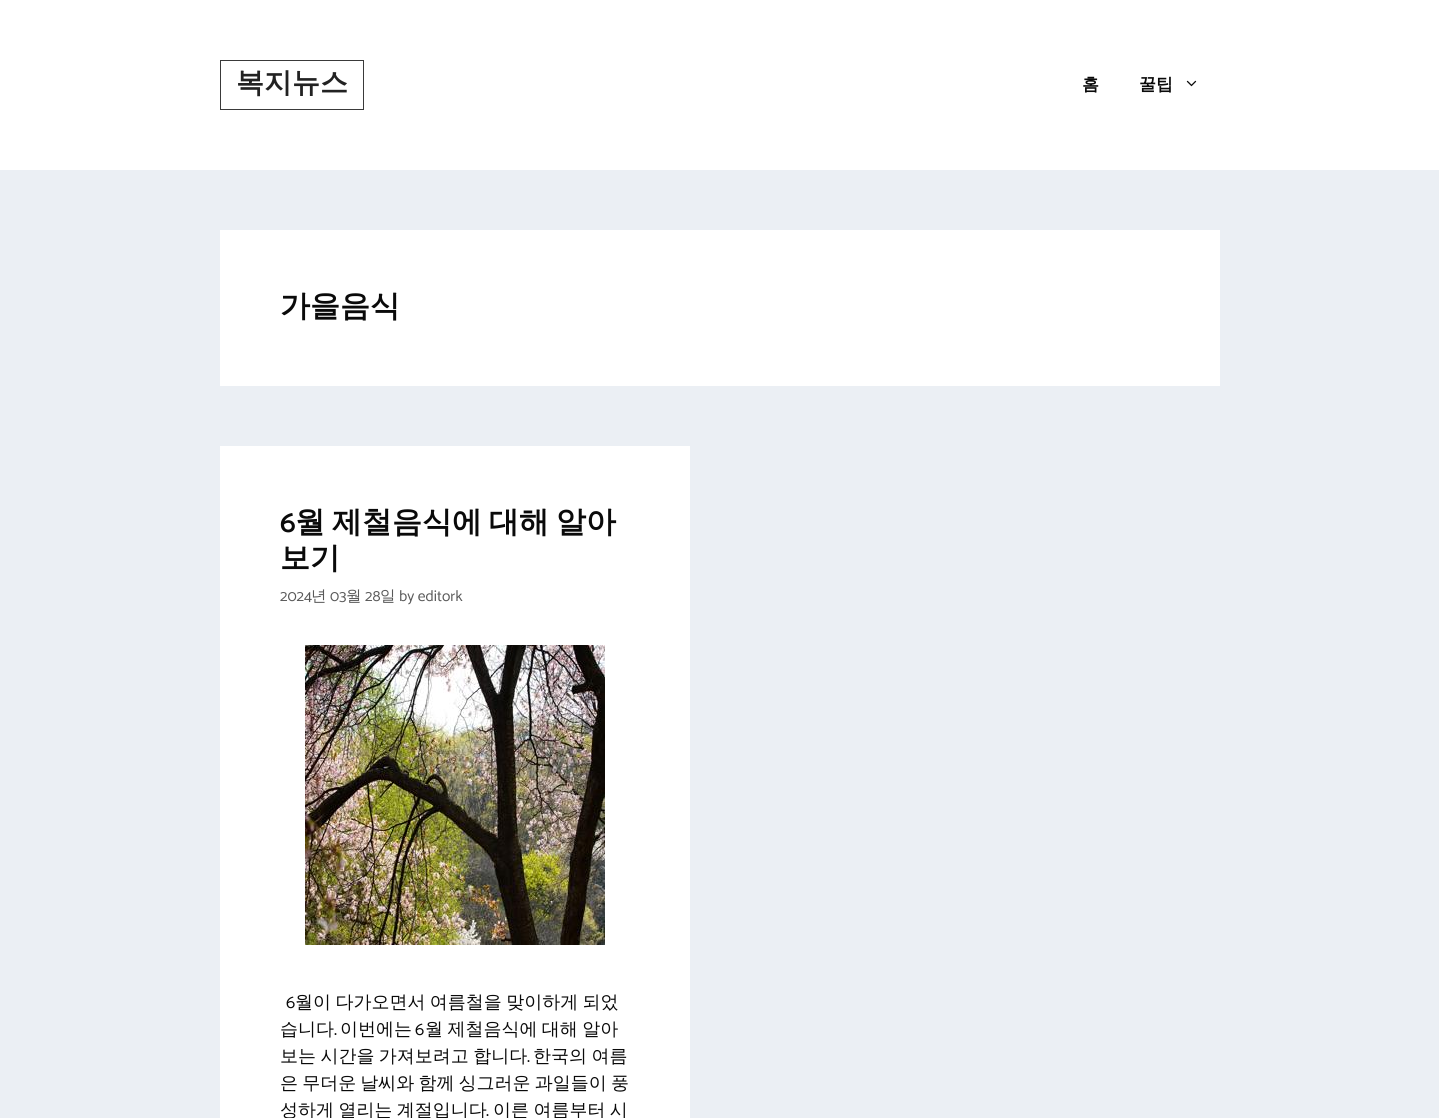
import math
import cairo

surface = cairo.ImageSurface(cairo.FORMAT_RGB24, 1439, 1118)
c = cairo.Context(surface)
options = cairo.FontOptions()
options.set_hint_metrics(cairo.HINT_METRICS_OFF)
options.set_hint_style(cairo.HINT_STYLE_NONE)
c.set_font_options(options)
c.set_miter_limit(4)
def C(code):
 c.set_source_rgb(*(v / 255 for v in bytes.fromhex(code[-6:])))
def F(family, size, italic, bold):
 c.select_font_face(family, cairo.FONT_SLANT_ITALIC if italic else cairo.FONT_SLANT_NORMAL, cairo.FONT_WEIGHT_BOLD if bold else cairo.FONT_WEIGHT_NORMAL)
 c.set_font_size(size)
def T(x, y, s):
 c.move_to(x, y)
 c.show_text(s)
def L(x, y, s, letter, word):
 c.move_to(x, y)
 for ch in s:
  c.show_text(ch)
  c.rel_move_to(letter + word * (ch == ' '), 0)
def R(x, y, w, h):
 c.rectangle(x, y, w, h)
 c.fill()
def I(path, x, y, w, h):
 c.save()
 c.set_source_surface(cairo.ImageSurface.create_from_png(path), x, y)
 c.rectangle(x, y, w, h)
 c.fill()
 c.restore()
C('ebeff4')
c.paint()
C('ffffff')
R(0,0,1439,170)
c.rectangle(220.5,60.5,143,49)
C('3a3a3a')
c.set_line_width(1)
c.stroke()
F('WenQuanYi Zen Hei',28,0,1)
C('222222')
T(236,92,'복지뉴스')
F('WenQuanYi Zen Hei',17,0,1)
C('0a0a0a')
T(1082,90,'홈')
T(1139,90,'꿀팁')
I('1.png',1186,80,11,7)
C('ffffff')
R(220,230,1000,156)
F('WenQuanYi Zen Hei',30,0,1)
C('0a0a0a')
T(280,316,'가을음식')
C('ffffff')
R(220,446,470,672)
F('Catamaran SemiBold',30,0,0)
C('0a0a0a')
T(280,532,'6')
F('WenQuanYi Zen Hei',30,0,1)
L(295,532,'월 제철음식에 대해 알아',0,-2)
T(280,568,'보기')
F('Catamaran',15.5,0,0)
C('595959')
T(280,601,'2024')
F('WenQuanYi Zen Hei Medium',15.5,0,0)
T(311,601,'년')
F('Catamaran',15.5,0,0)
T(330,601,'03')
F('WenQuanYi Zen Hei Medium',15.5,0,0)
T(346,601,'월')
F('Catamaran',15.5,0,0)
T(365,601,'28')
F('WenQuanYi Zen Hei Medium',15.5,0,0)
T(380,601,'일')
F('Catamaran',15.5,0,0)
T(399,601,'by editork')
I('2.png',305,645,300,300)
F('Catamaran',18,0,0)
C('0a0a0a')
T(286,1008,'6')
F('WenQuanYi Zen Hei Medium',18,0,0)
L(295,1008,'월이 다가오면서 여름철을 맞이하게 되었',0,-1)
T(280,1035,'습니다')
F('Catamaran',18,0,0)
T(334,1035,'.')
F('WenQuanYi Zen Hei Medium',18,0,0)
T(340,1035,'이번에는')
F('Catamaran',18,0,0)
T(415,1035,'6')
F('WenQuanYi Zen Hei Medium',18,0,0)
L(425,1035,'월 제철음식에 대해 알아',0,-1)
L(280,1062,'보는 시간을 가져보려고 합니다',0,-1)
F('Catamaran',18,0,0)
T(527,1062,'.')
F('WenQuanYi Zen Hei Medium',18,0,0)
L(533,1062,'한국의 여름',0,-1)
L(280,1089,'은 무더운 날씨와 함께 싱그러운 과일들이 풍',0,-1.25)
L(280,1116,'성하게 열리는 계절입니다',0,-1)
F('Catamaran',18,0,0)
T(486,1116,'.')
F('WenQuanYi Zen Hei Medium',18,0,0)
L(493,1116,'이른 여름부터 시',0,-1)
surface.write_to_png('o.png')
